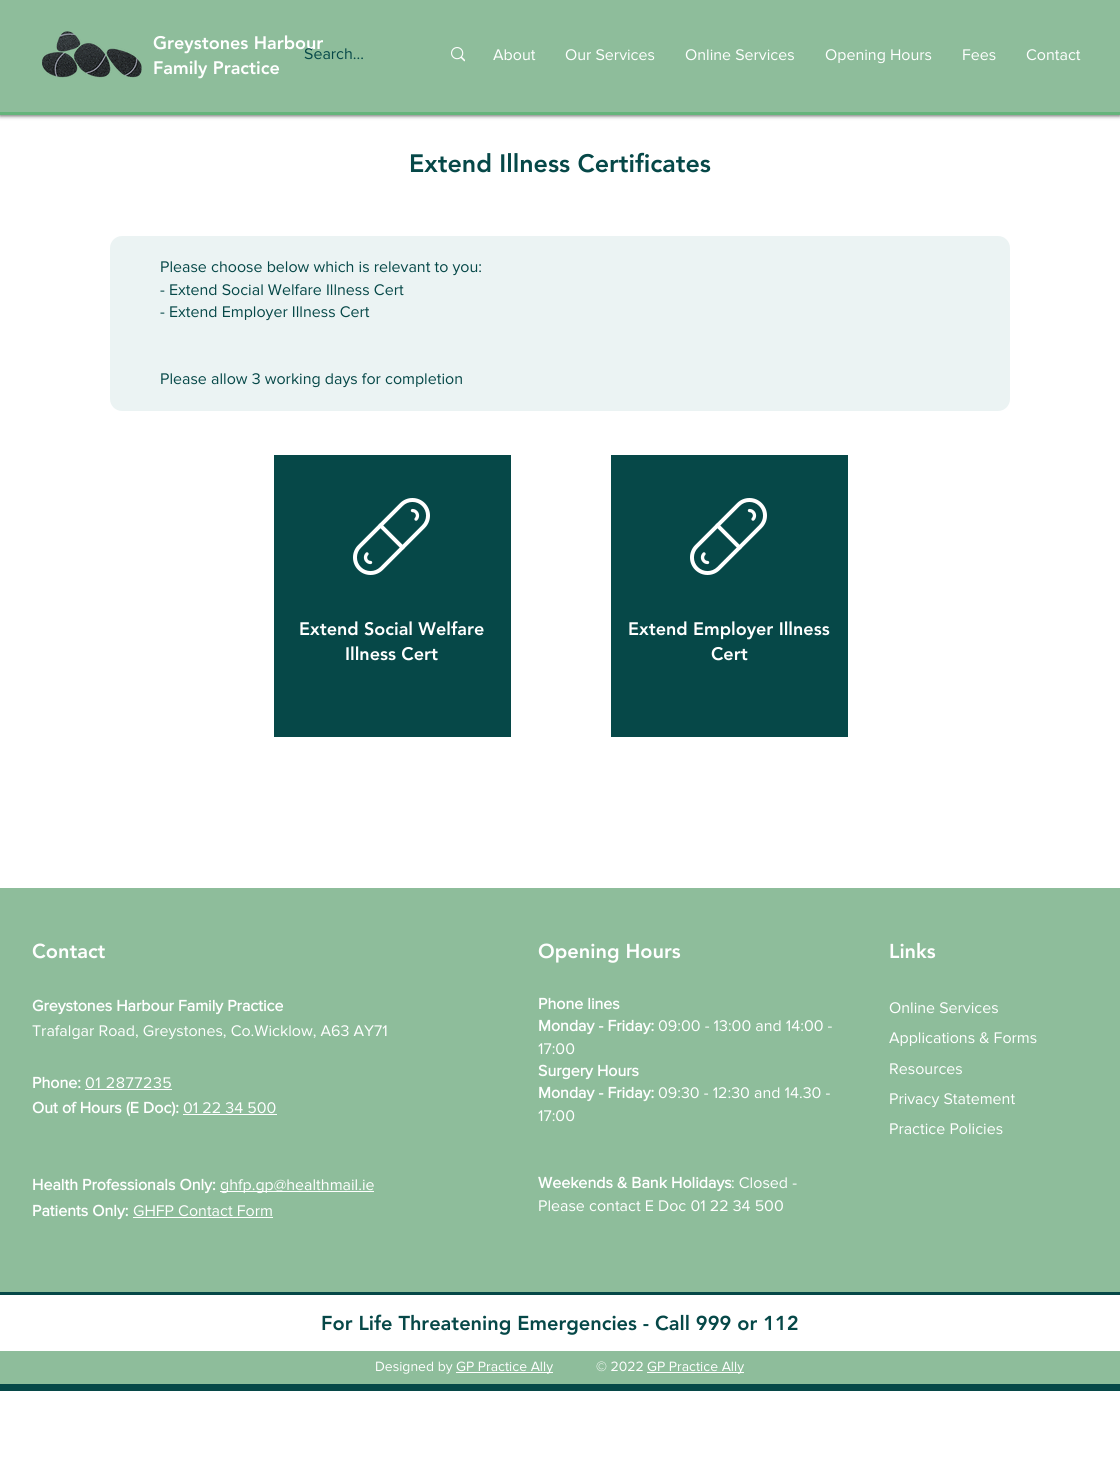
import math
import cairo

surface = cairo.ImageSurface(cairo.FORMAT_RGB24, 1120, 1473)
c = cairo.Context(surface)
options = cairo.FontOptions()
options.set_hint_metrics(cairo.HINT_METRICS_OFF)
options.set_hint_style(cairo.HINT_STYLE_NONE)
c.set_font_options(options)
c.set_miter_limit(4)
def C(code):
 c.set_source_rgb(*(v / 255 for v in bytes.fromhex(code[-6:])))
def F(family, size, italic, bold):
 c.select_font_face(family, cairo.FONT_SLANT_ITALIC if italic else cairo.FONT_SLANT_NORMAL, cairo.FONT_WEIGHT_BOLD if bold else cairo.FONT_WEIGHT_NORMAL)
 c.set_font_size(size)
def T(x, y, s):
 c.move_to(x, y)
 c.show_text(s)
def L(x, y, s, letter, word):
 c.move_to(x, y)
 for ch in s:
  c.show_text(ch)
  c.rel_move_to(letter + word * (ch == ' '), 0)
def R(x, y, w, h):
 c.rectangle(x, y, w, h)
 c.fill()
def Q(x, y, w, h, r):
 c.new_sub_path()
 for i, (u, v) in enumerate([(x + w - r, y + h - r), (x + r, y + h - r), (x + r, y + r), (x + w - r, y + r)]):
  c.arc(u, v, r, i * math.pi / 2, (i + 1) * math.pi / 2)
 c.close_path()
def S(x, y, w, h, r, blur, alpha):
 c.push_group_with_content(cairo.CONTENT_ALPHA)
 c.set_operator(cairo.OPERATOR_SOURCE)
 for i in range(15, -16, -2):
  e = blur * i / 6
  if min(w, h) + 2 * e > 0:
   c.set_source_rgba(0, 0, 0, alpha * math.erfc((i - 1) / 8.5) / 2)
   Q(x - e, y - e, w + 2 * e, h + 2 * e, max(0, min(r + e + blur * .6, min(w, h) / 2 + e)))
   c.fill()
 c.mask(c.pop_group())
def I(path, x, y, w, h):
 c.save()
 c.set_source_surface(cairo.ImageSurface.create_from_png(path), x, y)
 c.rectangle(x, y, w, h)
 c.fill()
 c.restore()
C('ffffff')
c.paint()
C('000000')
S(0,1,1120,115,0,2,.6)
C('65b47b')
R(0,112,1120,3)
C('8ebd9b')
R(0,0,1120,112)
I('1.png',42,31,100,47)
F('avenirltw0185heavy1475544 Black',18,0,0)
C('ffffff')
T(153,49,'Greystones Harbour')
T(153,74,'Family Practice')
F('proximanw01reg',16,0,0)
C('064848')
T(304,59,'Search...')
I('2.png',451,47,14,15)
C('ffffff')
T(493,60,'About')
T(565,60,'Our Services')
T(685,60,'Online Services')
T(825,60,'Opening Hours')
T(962,60,'Fees')
T(1026,60,'Contact')
F('avenirltw0185heavy1475544 Black',25,0,0)
C('064848')
T(409,172,'Extend Illness Certificates')
C('ebf3f3')
Q(110,236,900,175,12)
c.fill()
F('proximanw01reg',16,0,0)
C('064848')
T(160,272,'Please choose below which is relevant to you:')
T(160,295,'- Extend Social Welfare Illness Cert')
T(160,317,'- Extend Employer Illness Cert')
T(160,384,'Please allow 3 working days for completion')
R(274,455,237,282)
I('3.png',353,498,77,77)
F('avenirltw0185heavy1475544 Black',18,0,0)
C('ffffff')
T(299,635,'Extend Social Welfare')
T(345,660,'Illness Cert')
C('064848')
R(611,455,237,282)
I('3.png',690,498,77,77)
C('ffffff')
T(628,635,'Extend Employer Illness')
T(711,660,'Cert')
C('8ebd9b')
R(0,888,1120,404)
F('avenirltw0185heavy1475544 Black',20,0,0)
C('ffffff')
T(32,958,'Contact')
F('proximanw01reg',16,0,1)
T(32,1011,'Greystones Harbour Family Practice')
F('proximanw01reg',16,0,0)
T(32,1036,'Trafalgar Road, Greystones, Co.Wicklow, A63 AY71')
F('proximanw01reg',16,0,1)
T(32,1088,'Phone:')
F('proximanw01reg',16,0,0)
L(85,1088,'01 2877235',.5,0)
C('fcfdff')
R(85,1089,87,1)
F('proximanw01reg',16,0,1)
C('ffffff')
T(32,1113,'Out of Hours (E Doc):')
F('proximanw01reg',16,0,0)
T(183,1113,'01 22 34 500')
R(183,1114,94,1)
F('proximanw01reg',16,0,1)
T(32,1190,'Health Professionals Only:')
R(220,1191,154,1)
F('proximanw01reg',16,0,0)
T(220,1190,'ghfp.gp@healthmail.ie')
F('proximanw01reg',16,0,1)
T(32,1216,'Patients Only:')
F('proximanw01reg',16,0,0)
T(133,1216,'GHFP Contact Form')
R(133,1217,140,1)
F('avenirltw0185heavy1475544 Black',20,0,0)
T(538,958,'Opening Hours')
F('proximanw01reg',16,0,1)
T(538,1009,'Phone lines')
T(538,1031,'Monday - Friday:')
F('proximanw01reg',16,0,0)
T(658,1031,'09:00 - 13:00 and 14:00 -')
T(538,1054,'17:00')
F('proximanw01reg',16,0,1)
T(538,1076,'Surgery Hours')
T(538,1098,'Monday - Friday:')
F('proximanw01reg',16,0,0)
T(658,1098,'09:30 - 12:30 and 14.30 -')
T(538,1121,'17:00')
F('proximanw01reg',16,0,1)
T(538,1188,'Weekends & Bank Holidays')
F('proximanw01reg',16,0,0)
T(731,1188,': Closed -')
T(538,1211,'Please contact E Doc 01 22 34 500')
F('avenirltw0185heavy1475544 Black',20,0,0)
T(889,958,'Links')
F('proximanw01reg',16,0,0)
T(889,1013,'Online Services')
T(889,1043,'Applications & Forms')
T(889,1074,'Resources')
T(889,1104,'Privacy Statement')
T(889,1134,'Practice Policies')
C('064848')
R(0,1292,1120,99)
C('ffffff')
R(0,1295,1120,56)
F('avenirltw0185heavy1475544 Black',20,0,0)
C('064848')
T(321,1330,'For Life Threatening Emergencies - Call 999 or 112')
C('8ebd9b')
R(0,1351,1120,33)
F('proximanw01reg',14,0,0)
C('ffffff')
T(375,1371,'Designed by')
R(456,1372,97,1)
T(456,1371,'GP Practice Ally')
T(596,1371,'© 2022')
R(647,1372,97,1)
T(647,1371,'GP Practice Ally')
surface.write_to_png('o.png')
